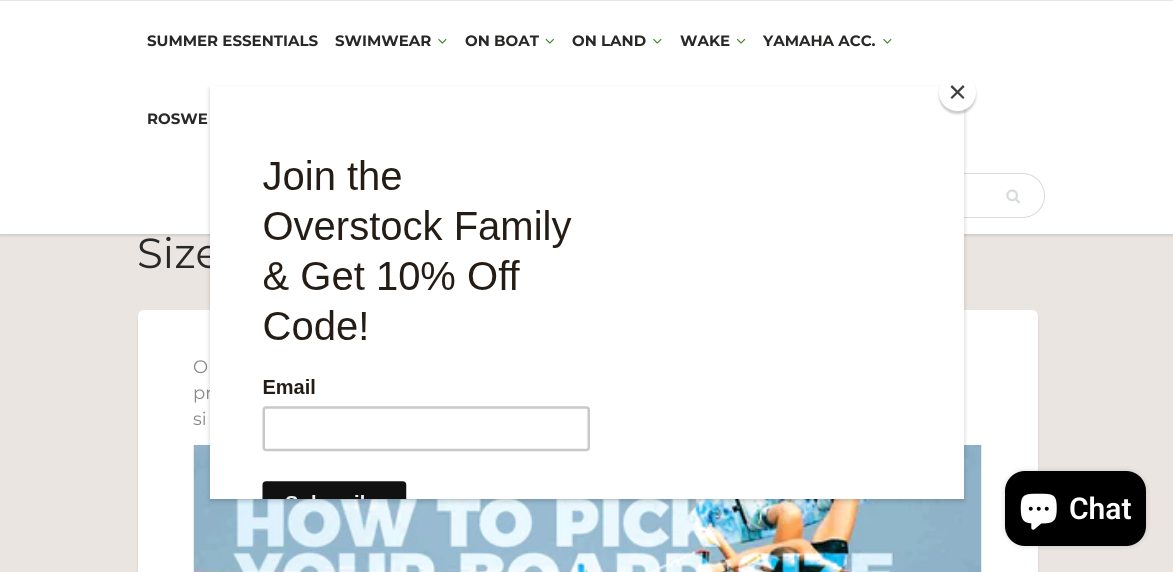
import math
import cairo

surface = cairo.ImageSurface(cairo.FORMAT_RGB24, 1173, 572)
c = cairo.Context(surface)
options = cairo.FontOptions()
options.set_hint_metrics(cairo.HINT_METRICS_OFF)
options.set_hint_style(cairo.HINT_STYLE_NONE)
c.set_font_options(options)
c.set_miter_limit(4)
def C(code):
 c.set_source_rgb(*(v / 255 for v in bytes.fromhex(code[-6:])))
def F(family, size, italic, bold):
 c.select_font_face(family, cairo.FONT_SLANT_ITALIC if italic else cairo.FONT_SLANT_NORMAL, cairo.FONT_WEIGHT_BOLD if bold else cairo.FONT_WEIGHT_NORMAL)
 c.set_font_size(size)
def T(x, y, s):
 c.move_to(x, y)
 c.show_text(s)
def R(x, y, w, h):
 c.rectangle(x, y, w, h)
 c.fill()
def Q(x, y, w, h, r):
 c.new_sub_path()
 for i, (u, v) in enumerate([(x + w - r, y + h - r), (x + r, y + h - r), (x + r, y + r), (x + w - r, y + r)]):
  c.arc(u, v, r, i * math.pi / 2, (i + 1) * math.pi / 2)
 c.close_path()
def S(x, y, w, h, r, blur, alpha):
 c.push_group_with_content(cairo.CONTENT_ALPHA)
 c.set_operator(cairo.OPERATOR_SOURCE)
 for i in range(15, -16, -2):
  e = blur * i / 6
  if min(w, h) + 2 * e > 0:
   c.set_source_rgba(0, 0, 0, alpha * math.erfc((i - 1) / 8.5) / 2)
   Q(x - e, y - e, w + 2 * e, h + 2 * e, max(0, min(r + e + blur * .6, min(w, h) / 2 + e)))
   c.fill()
 c.mask(c.pop_group())
def I(path, x, y, w, h):
 c.save()
 c.set_source_surface(cairo.ImageSurface.create_from_png(path), x, y)
 c.rectangle(x, y, w, h)
 c.fill()
 c.restore()
C('ebe5e2')
c.paint()
C('0b191c')
S(0,3,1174,233,0,1,.12)
C('ffffff')
R(0,1,1173,233)
F('Montserrat',15,0,1)
C('282827')
T(147,46,'SUMMER ESSENTIALS')
T(335,46,'SWIMWEAR')
I('1.png',438,38,9,6)
T(465,46,'ON BOAT')
I('2.png',545,38,9,6)
T(572,46,'ON LAND')
I('1.png',653,38,9,6)
T(680,46,'WAKE')
I('3.png',736,38,10,6)
T(763,46,'YAMAHA ACC.')
I('1.png',883,38,9,6)
T(147,124,'ROSWE')
Q(790.5,173.5,254,44,22)
C('d7dbdb')
c.set_line_width(1)
c.stroke()
I('4.png',1006,189,15,15)
F('Montserrat',42,0,0)
C('282827')
T(137,268,'Size')
C('0b191c')
S(138,313,900,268,6,1,.1)
C('ffffff')
Q(138,310,900,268,6)
c.fill()
F('Montserrat',18,0,0)
C('898989')
T(193,373,'O')
T(193,399,'pr')
T(193,425,'si')
I('5.png',193,445,789,127)
c.save()
c.set_fill_rule(cairo.FILL_RULE_EVEN_ODD)
c.new_path()
c.move_to(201,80)
c.line_to(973,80)
c.line_to(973,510)
c.line_to(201,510)
c.close_path()
c.move_to(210,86)
c.line_to(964,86)
c.line_to(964,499)
c.line_to(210,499)
c.close_path()
c.clip()
C('000000')
S(210,89,754,412,0,2.5,.2)
c.restore()
I('6.png',210,89,754,410)
C('000000')
S(939,76,37,38,18.5,1,.2)
C('ffffff')
c.arc(957.5,92.5,18.5,0,2 * math.pi)
c.fill()
C('414141')
c.new_path()
c.move_to(963,85)
c.line_to(964.5,87)
c.line_to(952,99)
c.line_to(950.5,97.5)
c.close_path()
c.fill()
c.new_path()
c.move_to(950.5,87)
c.line_to(952,85)
c.line_to(964.5,97.5)
c.line_to(963,99)
c.close_path()
c.fill()
C('000000')
S(1005,471,141,75,20,3,.15)
C('000000')
Q(1005,471,141,75,20)
c.fill()
I('7.png',1020,493,37,37)
F('Roboto SemiBold',30,0,0)
C('ffffff')
T(1069,519,'Chat')
surface.write_to_png('o.png')
